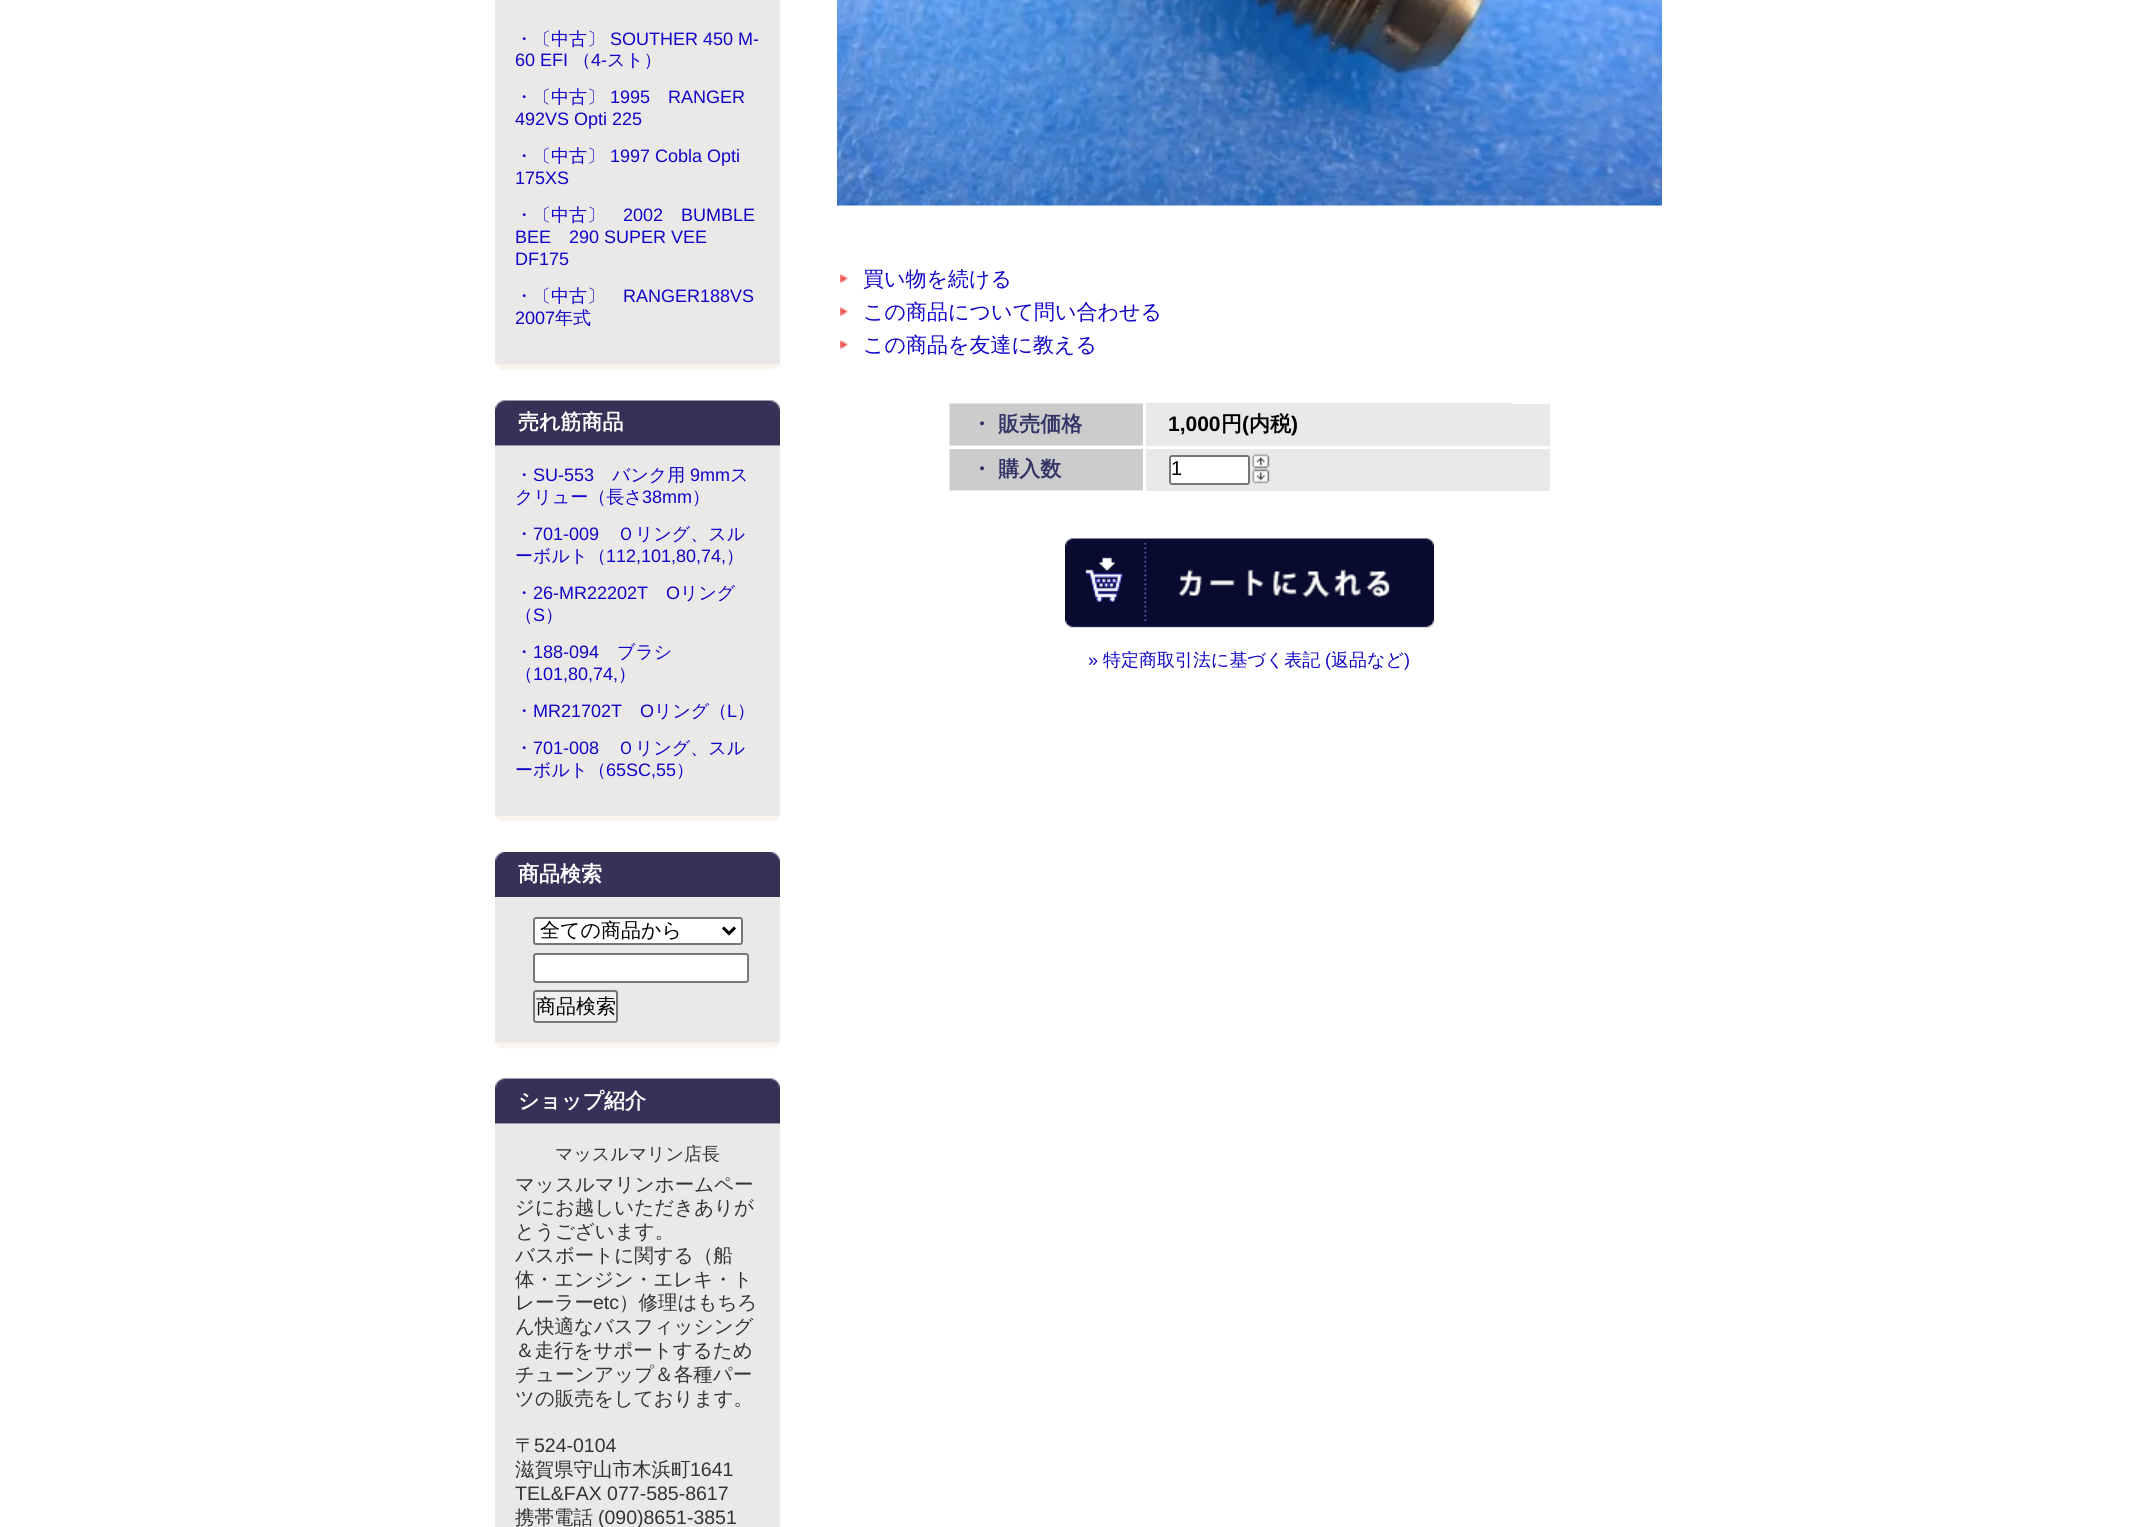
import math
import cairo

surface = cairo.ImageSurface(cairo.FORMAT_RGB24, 2145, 1527)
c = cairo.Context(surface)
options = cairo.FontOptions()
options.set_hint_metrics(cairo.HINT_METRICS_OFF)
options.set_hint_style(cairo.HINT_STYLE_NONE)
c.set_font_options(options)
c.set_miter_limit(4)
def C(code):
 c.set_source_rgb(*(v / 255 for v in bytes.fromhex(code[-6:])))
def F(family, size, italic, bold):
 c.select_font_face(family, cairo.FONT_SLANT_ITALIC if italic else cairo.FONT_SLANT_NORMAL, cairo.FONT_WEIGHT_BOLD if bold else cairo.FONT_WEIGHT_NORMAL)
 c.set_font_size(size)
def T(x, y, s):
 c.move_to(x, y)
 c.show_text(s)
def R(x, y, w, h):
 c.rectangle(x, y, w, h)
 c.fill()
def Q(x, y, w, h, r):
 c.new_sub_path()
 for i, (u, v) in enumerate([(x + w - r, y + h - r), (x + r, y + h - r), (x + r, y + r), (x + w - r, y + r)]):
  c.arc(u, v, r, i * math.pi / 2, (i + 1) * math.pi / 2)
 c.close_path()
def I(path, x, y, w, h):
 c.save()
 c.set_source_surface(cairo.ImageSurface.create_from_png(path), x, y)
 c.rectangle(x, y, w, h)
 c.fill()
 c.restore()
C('ffffff')
c.paint()
C('ebe8e8')
R(495,0,285,365)
F('WenQuanYi Zen Hei Medium',18,0,0)
C('1104c9')
T(515,45,'・〔中古〕')
F('Liberation Sans',18,0,0)
T(610,45,'SOUTHER 450 M-')
T(515,66,'60 EFI')
F('WenQuanYi Zen Hei Medium',18,0,0)
T(573,66,'（')
F('Liberation Sans',18,0,0)
T(591,66,'4-')
F('WenQuanYi Zen Hei Medium',18,0,0)
T(607,66,'スト）')
T(515,103,'・〔中古〕')
F('Liberation Sans',18,0,0)
T(610,103,'1995')
T(668,103,'RANGER')
T(515,125,'492VS Opti 225')
F('WenQuanYi Zen Hei Medium',18,0,0)
T(515,162,'・〔中古〕')
F('Liberation Sans',18,0,0)
T(610,162,'1997 Cobla Opti')
T(515,184,'175XS')
F('WenQuanYi Zen Hei Medium',18,0,0)
T(515,221,'・〔中古〕')
F('Liberation Sans',18,0,0)
T(623,221,'2002')
T(681,221,'BUMBLE')
T(515,243,'BEE')
T(569,243,'290 SUPER VEE')
T(515,265,'DF175')
F('WenQuanYi Zen Hei Medium',18,0,0)
T(515,302,'・〔中古〕')
F('Liberation Sans',18,0,0)
T(623,302,'RANGER188VS')
T(515,324,'2007')
F('WenQuanYi Zen Hei Medium',18,0,0)
T(555,324,'年式')
I('1.png',495,364,285,7)
I('2.png',495,400,285,46)
F('WenQuanYi Zen Hei',21,0,1)
C('ffffff')
T(518,429,'売れ筋商品')
C('ebe8e8')
R(495,446,285,370)
F('WenQuanYi Zen Hei Medium',18,0,0)
C('1104c9')
T(515,481,'・')
F('Liberation Sans',18,0,0)
T(533,481,'SU-553')
F('WenQuanYi Zen Hei Medium',18,0,0)
T(612,481,'バンク用')
F('Liberation Sans',18,0,0)
T(690,481,'9mm')
F('WenQuanYi Zen Hei Medium',18,0,0)
T(730,481,'ス')
T(515,503,'クリュー（長さ')
F('Liberation Sans',18,0,0)
T(642,503,'38mm')
F('WenQuanYi Zen Hei Medium',18,0,0)
T(692,503,'）')
T(515,540,'・')
F('Liberation Sans',18,0,0)
T(533,540,'701-009')
F('WenQuanYi Zen Hei Medium',18,0,0)
T(617,540,'Ｏリング、スル')
T(515,562,'ーボルト（')
F('Liberation Sans',18,0,0)
T(606,562,'112,101,80,74,')
F('WenQuanYi Zen Hei Medium',18,0,0)
T(726,562,'）')
T(515,599,'・')
F('Liberation Sans',18,0,0)
T(533,599,'26-MR22202T')
T(666,599,'O')
F('WenQuanYi Zen Hei Medium',18,0,0)
T(680,599,'リング')
T(515,621,'（')
F('Liberation Sans',18,0,0)
T(533,621,'S')
F('WenQuanYi Zen Hei Medium',18,0,0)
T(545,621,'）')
T(515,658,'・')
F('Liberation Sans',18,0,0)
T(533,658,'188-094')
F('WenQuanYi Zen Hei Medium',18,0,0)
T(617,658,'ブラシ')
T(515,680,'（')
F('Liberation Sans',18,0,0)
T(533,680,'101,80,74,')
F('WenQuanYi Zen Hei Medium',18,0,0)
T(618,680,'）')
T(515,717,'・')
F('Liberation Sans',18,0,0)
T(533,717,'MR21702T')
T(640,717,'O')
F('WenQuanYi Zen Hei Medium',18,0,0)
T(654,717,'リング（')
F('Liberation Sans',18,0,0)
T(727,717,'L')
F('WenQuanYi Zen Hei Medium',18,0,0)
T(737,717,'）')
T(515,754,'・')
F('Liberation Sans',18,0,0)
T(533,754,'701-008')
F('WenQuanYi Zen Hei Medium',18,0,0)
T(617,754,'Ｏリング、スル')
T(515,776,'ーボルト（')
F('Liberation Sans',18,0,0)
T(606,776,'65SC,55')
F('WenQuanYi Zen Hei Medium',18,0,0)
T(676,776,'）')
I('3.png',496,816,283,6)
I('4.png',495,852,285,45)
F('WenQuanYi Zen Hei',21,0,1)
C('ffffff')
T(518,881,'商品検索')
C('ebe8e8')
R(495,897,285,146)
C('ffffff')
Q(534,918,208,26,2)
c.fill_preserve()
C('767676')
c.stroke()
c.new_path()
c.move_to(723,927.5)
c.line_to(729,933.5)
c.line_to(735,927.5)
C('000000')
c.set_line_width(3)
c.stroke()
F('WenQuanYi Zen Hei Medium',20,0,0)
T(540,937,'全ての商品から')
C('ffffff')
Q(534,954,214,28,2)
c.fill_preserve()
C('767676')
c.set_line_width(2)
c.stroke()
C('efefef')
Q(534,991,83,31,2)
c.fill_preserve()
C('767676')
c.stroke()
C('000000')
T(536,1013,'商品検索')
I('1.png',495,1042,285,7)
I('2.png',495,1078,285,46)
F('WenQuanYi Zen Hei',21,0,1)
C('ffffff')
T(518,1108,'ショップ紹介')
C('ebe8e8')
R(495,1124,285,403)
F('WenQuanYi Zen Hei Medium',18,0,0)
C('333333')
T(555,1160,'マッスルマリン店長')
F('WenQuanYi Zen Hei Medium',19.5,0,0)
T(515,1191,'マッスルマリンホームペー')
T(515,1214,'ジにお越しいただきありが')
T(515,1238,'とうございます。')
T(515,1262,'バスボートに関する（船')
T(515,1286,'体・エンジン・エレキ・ト')
T(515,1309,'レーラー')
F('Liberation Sans',19.5,0,0)
T(593,1309,'etc')
F('WenQuanYi Zen Hei Medium',19.5,0,0)
T(619,1309,'）修理はもちろ')
T(515,1333,'ん快適なバスフィッシング')
T(515,1357,'＆走行をサポートするため')
T(515,1381,'チューンアップ＆各種パー')
T(515,1405,'ツの販売をしております。')
T(515,1452,'〒')
F('Liberation Sans',19.5,0,0)
T(534,1452,'524-0104')
F('WenQuanYi Zen Hei Medium',19.5,0,0)
T(515,1476,'滋賀県守山市木浜町')
F('Liberation Sans',19.5,0,0)
T(690,1476,'1641')
T(515,1500,'TEL&FAX 077-585-8617')
F('WenQuanYi Zen Hei Medium',19.5,0,0)
T(515,1524,'携帯電話')
F('Liberation Sans',19.5,0,0)
T(598,1524,'(090)8651-3851')
I('5.png',837,0,825,206)
I('6.png',840,274,8,10)
F('WenQuanYi Zen Hei Medium',21,0,0)
C('1104c9')
T(863,286,'買い物を続ける')
I('6.png',840,307,8,10)
T(863,319,'この商品について問い合わせる')
I('6.png',840,340,8,10)
T(863,352,'この商品を友達に教える')
I('7.png',949,403,563,88)
C('ffffff')
R(1143,402,3,2)
R(1143,446,3,3)
R(1143,448,369,1)
R(948,446,198,3)
F('WenQuanYi Zen Hei',21,0,1)
C('333366')
T(971,431,'・ 販売価格')
C('e9e9e9')
R(1146,404,404,42)
F('Liberation Sans',21,0,1)
C('000000')
T(1168,431,'1,000')
F('WenQuanYi Zen Hei',21,0,1)
T(1221,431,'円')
F('Liberation Sans',21,0,1)
T(1242,431,'(')
F('WenQuanYi Zen Hei',21,0,1)
T(1249,431,'内税')
F('Liberation Sans',21,0,1)
T(1291,431,')')
F('WenQuanYi Zen Hei',21,0,1)
C('333366')
T(971,476,'・ 購入数')
C('e9e9e9')
R(1146,449,404,42)
C('ffffff')
Q(1170,456,79,28,2)
c.fill_preserve()
C('767676')
c.stroke()
F('Liberation Sans',20,0,0)
C('000000')
T(1171,475,'1')
I('8.png',1252,454,18,15)
I('9.png',1252,469,18,15)
I('10.png',1065,538,369,90)
F('Liberation Sans',18,0,0)
C('1104c9')
T(1088,666,'»')
F('WenQuanYi Zen Hei Medium',18,0,0)
T(1103,666,'特定商取引法に基づく表記')
F('Liberation Sans',18,0,0)
T(1325,666,'(')
F('WenQuanYi Zen Hei Medium',18,0,0)
T(1331,666,'返品など')
F('Liberation Sans',18,0,0)
T(1404,666,')')
surface.write_to_png('o.png')
